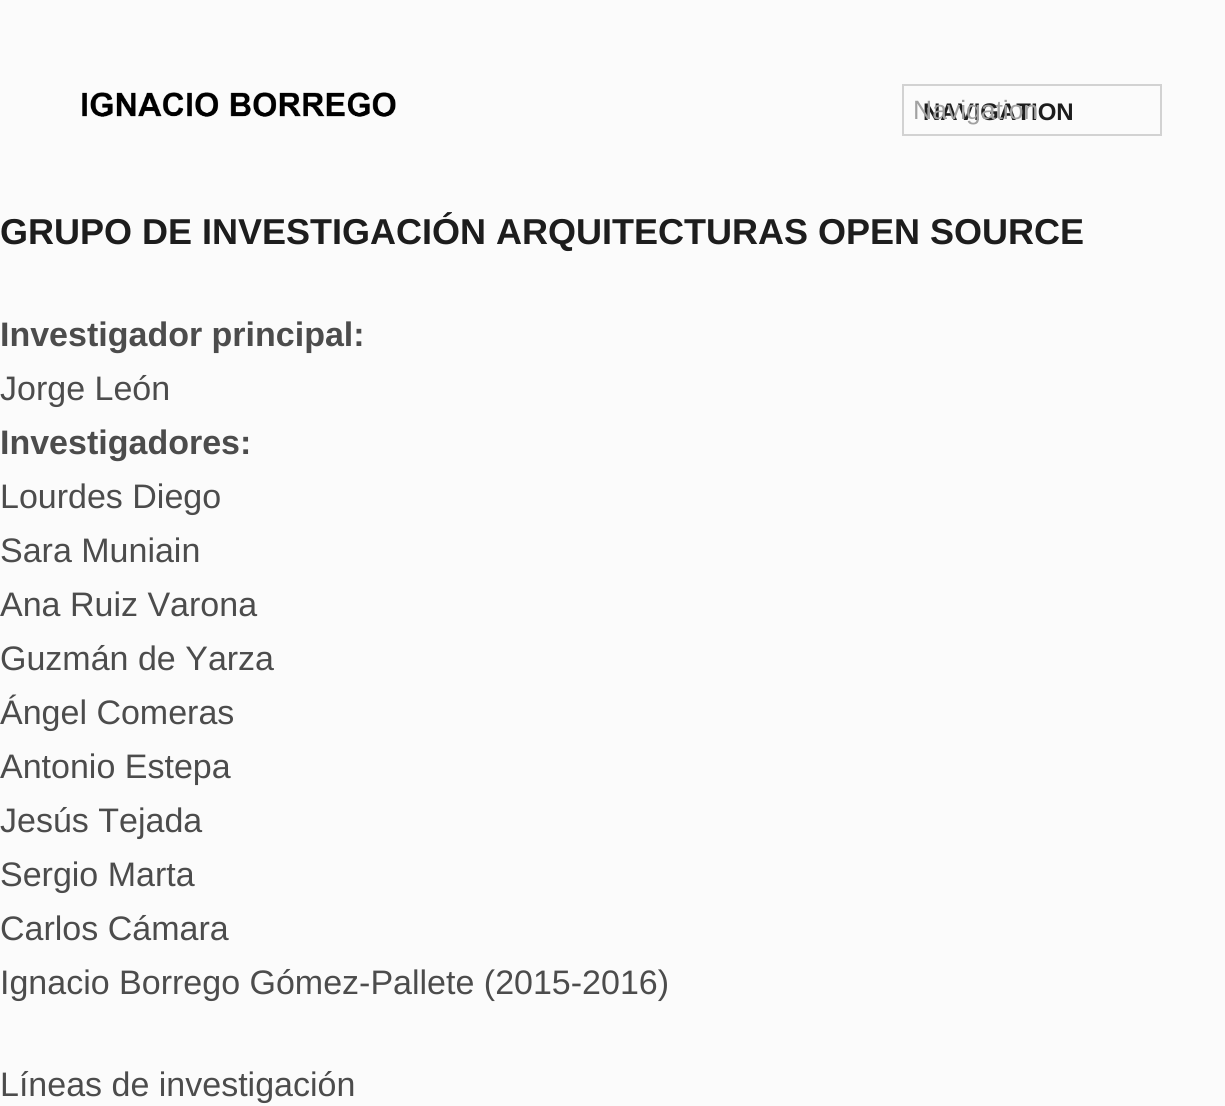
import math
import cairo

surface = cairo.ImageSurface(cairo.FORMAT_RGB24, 1225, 1106)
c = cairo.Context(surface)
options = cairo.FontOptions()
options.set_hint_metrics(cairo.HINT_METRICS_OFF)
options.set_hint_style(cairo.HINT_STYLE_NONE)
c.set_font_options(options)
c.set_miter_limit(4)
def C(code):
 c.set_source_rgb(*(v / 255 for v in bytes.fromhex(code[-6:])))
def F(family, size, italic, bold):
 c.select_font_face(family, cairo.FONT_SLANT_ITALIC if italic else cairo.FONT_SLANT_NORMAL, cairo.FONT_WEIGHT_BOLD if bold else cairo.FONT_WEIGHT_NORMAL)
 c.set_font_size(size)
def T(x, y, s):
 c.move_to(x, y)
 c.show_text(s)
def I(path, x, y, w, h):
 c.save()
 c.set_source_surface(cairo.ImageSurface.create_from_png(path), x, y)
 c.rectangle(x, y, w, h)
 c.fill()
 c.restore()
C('fbfbfb')
c.paint()
I('1.png',82,92,314,25)
c.rectangle(903,85,258,50)
C('d2d2d2')
c.stroke()
F('Liberation Sans',24,0,1)
C('1d1d1d')
T(923,120,'NAVIGATION')
F('Liberation Sans',26.5,0,0)
C('a1a1a1')
T(913,119,'Navigation')
F('Liberation Sans',36,0,1)
C('1d1d1d')
T(0,244,'GRUPO DE INVESTIGACIÓN ARQUITECTURAS OPEN SOURCE')
F('Liberation Sans',34,0,1)
C('4c4c4c')
T(0,346,'Investigador principal:')
F('Liberation Sans',34,0,0)
T(0,400,'Jorge León')
F('Liberation Sans',34,0,1)
T(0,454,'Investigadores:')
F('Liberation Sans',34,0,0)
T(0,508,'Lourdes Diego')
T(0,562,'Sara Muniain')
T(0,616,'Ana Ruiz Varona')
T(0,670,'Guzmán de Yarza')
T(0,724,'Ángel Comeras')
T(0,778,'Antonio Estepa')
T(0,832,'Jesús Tejada')
T(0,886,'Sergio Marta')
T(0,940,'Carlos Cámara')
T(0,994,'Ignacio Borrego Gómez-Pallete (2015-2016)')
T(0,1096,'Líneas de investigación')
surface.write_to_png('o.png')
